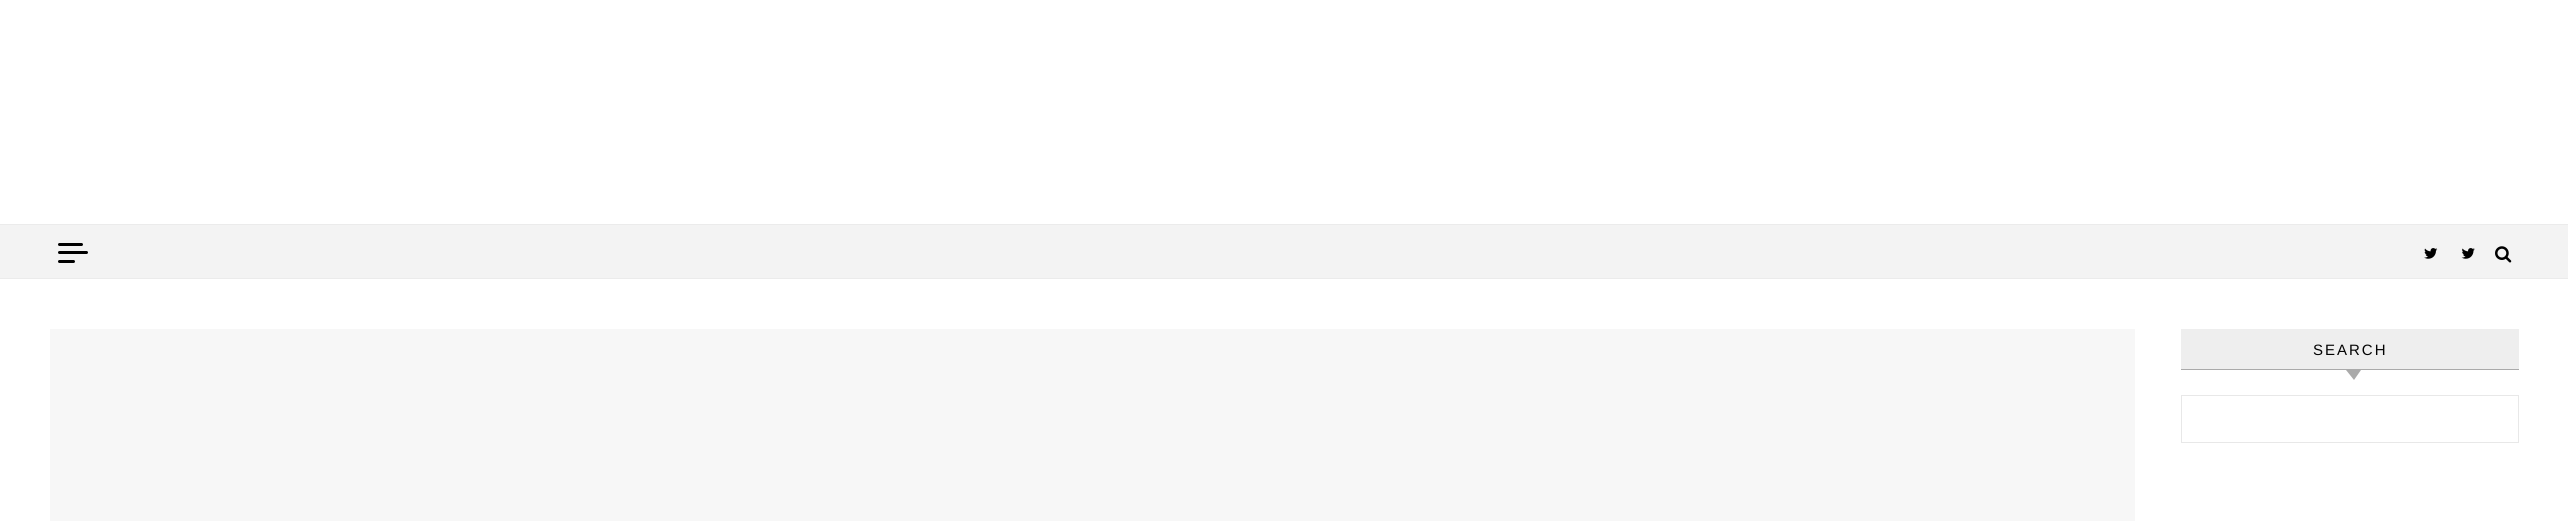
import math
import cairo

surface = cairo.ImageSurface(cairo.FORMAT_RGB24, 2568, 521)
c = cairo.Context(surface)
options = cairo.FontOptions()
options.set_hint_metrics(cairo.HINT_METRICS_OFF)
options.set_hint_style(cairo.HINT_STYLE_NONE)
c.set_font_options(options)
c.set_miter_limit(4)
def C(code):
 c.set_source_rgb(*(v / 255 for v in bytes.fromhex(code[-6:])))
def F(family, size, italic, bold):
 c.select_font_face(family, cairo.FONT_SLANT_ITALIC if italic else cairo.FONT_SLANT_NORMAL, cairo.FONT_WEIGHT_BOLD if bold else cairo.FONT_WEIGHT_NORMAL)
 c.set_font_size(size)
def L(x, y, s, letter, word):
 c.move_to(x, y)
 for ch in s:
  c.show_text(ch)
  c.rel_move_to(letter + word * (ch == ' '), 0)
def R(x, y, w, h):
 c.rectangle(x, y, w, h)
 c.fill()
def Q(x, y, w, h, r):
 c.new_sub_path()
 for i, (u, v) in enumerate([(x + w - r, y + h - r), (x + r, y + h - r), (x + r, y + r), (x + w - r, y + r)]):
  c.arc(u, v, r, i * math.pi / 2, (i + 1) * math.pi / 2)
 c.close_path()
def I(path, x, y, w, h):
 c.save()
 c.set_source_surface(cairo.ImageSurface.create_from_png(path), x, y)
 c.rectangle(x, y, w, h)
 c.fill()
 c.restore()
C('ffffff')
c.paint()
C('ebebeb')
R(0,224,2568,1)
C('f3f3f3')
R(0,225,2568,53)
C('ebebeb')
R(0,278,2568,1)
C('000000')
Q(58,243,25,3,1.5)
c.fill()
Q(58,251,30,3,1.5)
c.fill()
Q(58,260,17,3,1.5)
c.fill()
I('1.png',2424,248,14,11)
I('2.png',2461,248,14,11)
I('3.png',2495,246,17,17)
C('f7f7f7')
R(50,329,2085,192)
C('eeeeee')
R(2181,329,338,40)
C('aaaaaa')
R(2181,369,338,1)
F('Liberation Sans',15,0,0)
C('030303')
L(2313,355,'SEARCH',2,0)
C('aaaaaa')
c.new_path()
c.move_to(2346,370)
c.line_to(2361,370)
c.line_to(2354,380)
c.close_path()
c.fill()
c.rectangle(2181.5,395.5,337,47)
C('e8e8e8')
c.set_line_width(1)
c.stroke()
surface.write_to_png('o.png')
